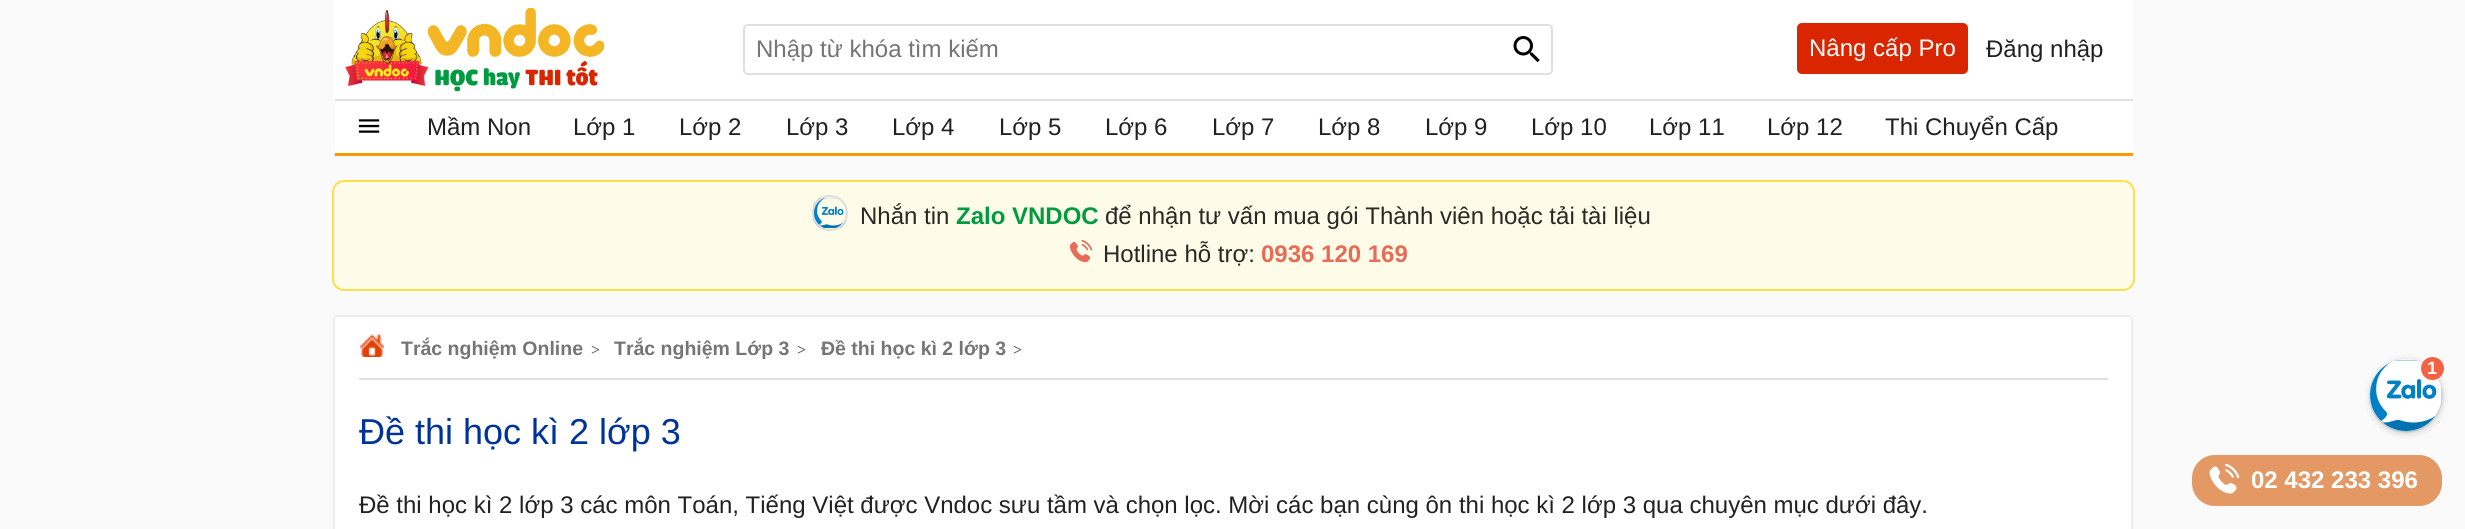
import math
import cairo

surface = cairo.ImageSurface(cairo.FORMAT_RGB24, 2465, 529)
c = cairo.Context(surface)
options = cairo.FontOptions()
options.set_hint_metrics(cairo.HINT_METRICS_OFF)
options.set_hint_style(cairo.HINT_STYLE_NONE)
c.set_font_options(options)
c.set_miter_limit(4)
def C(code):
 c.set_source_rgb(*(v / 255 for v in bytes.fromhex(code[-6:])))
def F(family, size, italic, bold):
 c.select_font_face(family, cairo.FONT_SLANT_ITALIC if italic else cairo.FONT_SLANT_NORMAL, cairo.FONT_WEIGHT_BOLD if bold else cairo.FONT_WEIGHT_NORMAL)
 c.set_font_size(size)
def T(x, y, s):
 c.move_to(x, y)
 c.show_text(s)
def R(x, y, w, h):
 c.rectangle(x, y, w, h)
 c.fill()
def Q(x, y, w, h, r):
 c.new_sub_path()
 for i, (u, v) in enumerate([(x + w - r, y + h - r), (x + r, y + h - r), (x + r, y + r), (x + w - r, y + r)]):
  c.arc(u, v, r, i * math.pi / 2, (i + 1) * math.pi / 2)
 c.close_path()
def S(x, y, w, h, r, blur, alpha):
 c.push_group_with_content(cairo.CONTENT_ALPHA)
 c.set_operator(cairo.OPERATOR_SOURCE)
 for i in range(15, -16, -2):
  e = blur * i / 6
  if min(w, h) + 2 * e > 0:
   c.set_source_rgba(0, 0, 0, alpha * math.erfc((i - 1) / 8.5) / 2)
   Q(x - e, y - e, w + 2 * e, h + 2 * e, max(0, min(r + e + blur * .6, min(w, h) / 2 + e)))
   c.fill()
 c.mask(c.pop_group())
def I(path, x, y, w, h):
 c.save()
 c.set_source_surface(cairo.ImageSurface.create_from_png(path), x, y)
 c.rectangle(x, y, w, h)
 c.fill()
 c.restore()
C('fafafa')
c.paint()
C('ffffff')
R(333,0,1800,99)
I('1.png',345,8,260,84)
Q(744,25,808,49,4)
C('e0e0e0')
c.stroke()
F('Liberation Sans',24,0,0)
C('757575')
T(756,57,'Nhập từ khóa tìm kiếm')
I('2.png',1513,36,27,27)
C('d92600')
Q(1797,23,171,51,5)
c.fill()
C('ffffff')
T(1809,56,'Nâng cấp Pro')
C('212121')
T(1986,57,'Đăng nhập')
C('ffffff')
R(335,101,1798,52)
C('ff9800')
R(335,153,1798,3)
C('e0e0e0')
R(335,99,1798,2)
I('3.png',358,119,22,14)
C('212121')
T(427,135,'Mầm Non')
T(573,135,'Lớp 1')
T(679,135,'Lớp 2')
T(786,135,'Lớp 3')
T(892,135,'Lớp 4')
T(999,135,'Lớp 5')
T(1105,135,'Lớp 6')
T(1212,135,'Lớp 7')
T(1318,135,'Lớp 8')
T(1425,135,'Lớp 9')
T(1531,135,'Lớp 10')
T(1649,135,'Lớp 11')
T(1767,135,'Lớp 12')
T(1885,135,'Thi Chuyển Cấp')
C('fefce8')
Q(333,181,1801,109,11)
c.fill_preserve()
C('fde047')
c.stroke()
I('4.png',813,198,33,30)
c.arc(830,213,17,0,2 * math.pi)
C('dddddd')
c.stroke()
C('292825')
T(860,224,'Nhắn tin')
F('Liberation Sans',24,0,1)
C('009b41')
T(956,224,'Zalo VNDOC')
F('Liberation Sans',24,0,0)
C('292825')
T(1105,224,'để nhận tư vấn mua gói Thành viên hoặc tải tài liệu')
I('5.png',1069,239,24,24)
T(1103,262,'Hotline hỗ trợ:')
F('Liberation Sans',24,0,1)
C('e76b55')
T(1261,262,'0936 120 169')
C('ffffff')
Q(334,316,1798,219,4)
c.fill_preserve()
C('eeeeee')
c.stroke()
C('e0e0e0')
R(359,378,1749,2)
I('6.png',360,334,24,23)
F('Liberation Sans',19.5,0,1)
C('757575')
T(401,355,'Trắc nghiệm Online')
F('Liberation Serif',16,0,1)
C('666666')
T(591,355,'>')
F('Liberation Sans',19.5,0,1)
C('757575')
T(614,355,'Trắc nghiệm Lớp 3')
F('Liberation Serif',16,0,1)
C('666666')
T(797,355,'>')
F('Liberation Sans',19.5,0,1)
C('757575')
T(821,355,'Đề thi học kì 2 lớp 3')
F('Liberation Serif',16,0,1)
C('666666')
T(1013,355,'>')
F('Liberation Sans',36,0,0)
C('003399')
T(359,444,'Đề thi học kì 2 lớp 3')
F('Liberation Sans',24,0,0)
C('212121')
T(359,513,'Đề thi học kì 2 lớp 3 các môn Toán, Tiếng Việt được Vndoc sưu tầm và chọn lọc. Mời các bạn cùng ôn thi học kì 2 lớp 3 qua chuyên mục dưới đây.')
C('3c4043')
S(2369,359,75,76,37.5,3,.15)
S(2370,360,72,72,36,1,.3)
C('ffffff')
c.arc(2406,395,36,0,2 * math.pi)
c.fill()
I('7.png',2370,360,72,71)
C('f56243')
c.arc(2432.5,368.5,11.5,0,2 * math.pi)
c.fill()
F('Liberation Sans',18,0,1)
C('ffffff')
T(2427,374,'1')
C('e49864')
Q(2192,455,250,51,23)
c.fill()
I('8.png',2209,463,31,31)
F('Liberation Sans',24,0,1)
C('ffffff')
T(2251,488,'02 432 233 396')
surface.write_to_png('o.png')
